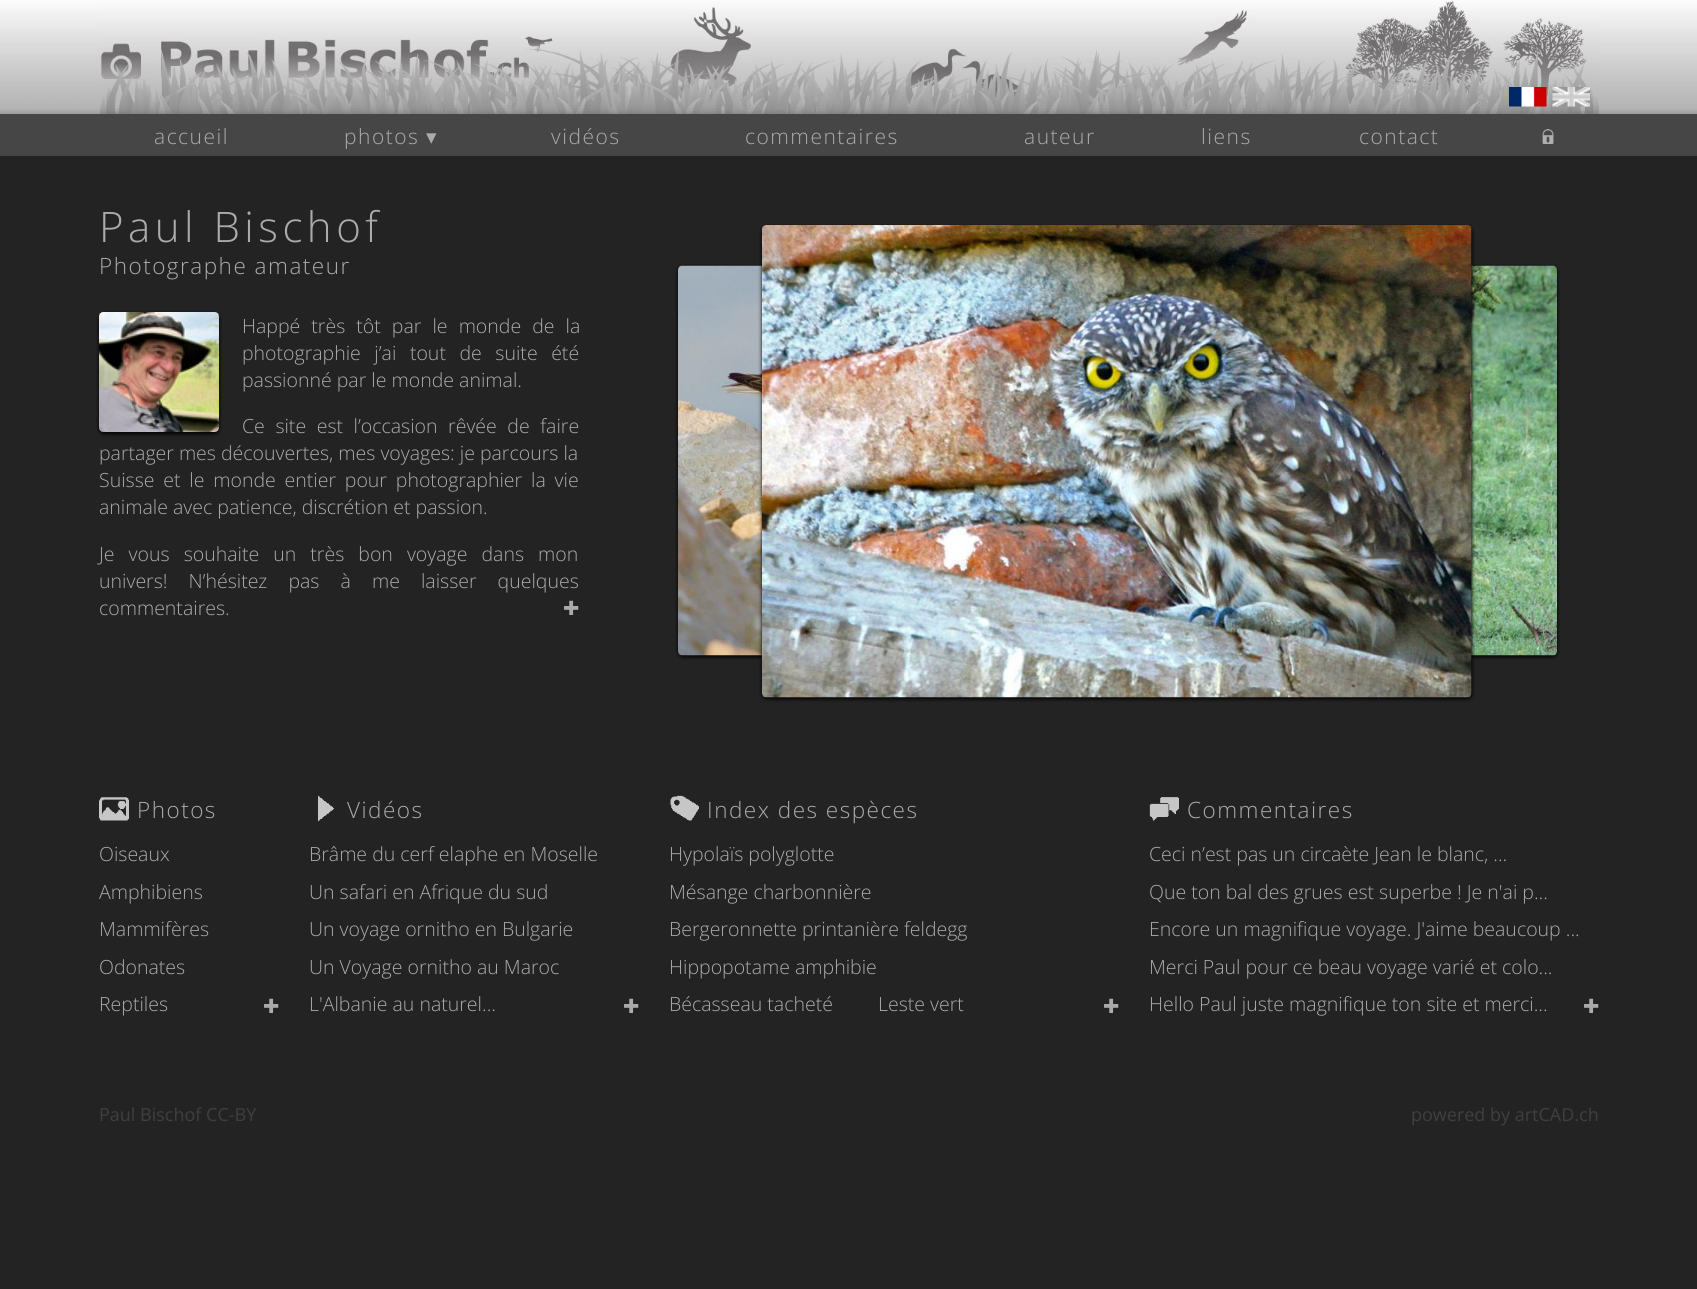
import math
import cairo

surface = cairo.ImageSurface(cairo.FORMAT_RGB24, 1697, 1289)
c = cairo.Context(surface)
options = cairo.FontOptions()
options.set_hint_metrics(cairo.HINT_METRICS_OFF)
options.set_hint_style(cairo.HINT_STYLE_NONE)
c.set_font_options(options)
c.set_miter_limit(4)
def C(code):
 c.set_source_rgb(*(v / 255 for v in bytes.fromhex(code[-6:])))
def F(family, size, italic, bold):
 c.select_font_face(family, cairo.FONT_SLANT_ITALIC if italic else cairo.FONT_SLANT_NORMAL, cairo.FONT_WEIGHT_BOLD if bold else cairo.FONT_WEIGHT_NORMAL)
 c.set_font_size(size)
def T(x, y, s):
 c.move_to(x, y)
 c.show_text(s)
def L(x, y, s, letter, word):
 c.move_to(x, y)
 for ch in s:
  c.show_text(ch)
  c.rel_move_to(letter + word * (ch == ' '), 0)
def R(x, y, w, h):
 c.rectangle(x, y, w, h)
 c.fill()
def Q(x, y, w, h, r):
 c.new_sub_path()
 for i, (u, v) in enumerate([(x + w - r, y + h - r), (x + r, y + h - r), (x + r, y + r), (x + w - r, y + r)]):
  c.arc(u, v, r, i * math.pi / 2, (i + 1) * math.pi / 2)
 c.close_path()
def S(x, y, w, h, r, blur, alpha):
 c.push_group_with_content(cairo.CONTENT_ALPHA)
 c.set_operator(cairo.OPERATOR_SOURCE)
 for i in range(15, -16, -2):
  e = blur * i / 6
  if min(w, h) + 2 * e > 0:
   c.set_source_rgba(0, 0, 0, alpha * math.erfc((i - 1) / 8.5) / 2)
   Q(x - e, y - e, w + 2 * e, h + 2 * e, max(0, min(r + e + blur * .6, min(w, h) / 2 + e)))
   c.fill()
 c.mask(c.pop_group())
def I(path, x, y, w, h):
 c.save()
 c.set_source_surface(cairo.ImageSurface.create_from_png(path), x, y)
 c.rectangle(x, y, w, h)
 c.fill()
 c.restore()
C('232323')
c.paint()
I('1.png',0,0,1697,114)
I('2.png',99,1,1500,113)
I('3.png',1509,87,38,20)
I('4.png',1552,87,38,20)
C('464646')
R(0,114,1697,42)
F('Open Sans Light',21,0,0)
C('ababab')
L(154,144,'accueil',1.5,0)
L(344,144,'photos',1.5,0)
F('DejaVu Sans',21,0,0)
L(426,144,'▾',1.5,0)
F('Open Sans Light',21,0,0)
L(551,144,'vidéos',1.5,0)
L(745,144,'commentaires',1.5,0)
L(1024,144,'auteur',1.5,0)
L(1201,144,'liens',1.5,0)
L(1359,144,'contact',1.5,0)
I('5.png',1542,129,12,15)
F('Open Sans Light',42,0,0)
L(99,242,'Paul Bischof',4.5,0)
F('Open Sans Light',22.5,0,0)
L(99,274,'Photographe amateur',1.5,0)
C('000000')
S(99,314,120,120,5,2,1)
I('6.png',99,312,120,120)
F('Open Sans Light',19.5,0,0)
C('ababab')
L(242,333,'Happé très tôt par le monde de la',0,6)
L(242,360,'photographie j’ai tout de suite été',0,8.5)
T(242,387,'passionné par le monde animal.')
L(242,433,'Ce site est l’occasion rêvée de faire',0,5.5)
T(99,460,'partager mes découvertes, mes voyages: je parcours la')
L(99,487,'Suisse et le monde entier pour photographier la vie',0,3.75)
T(99,514,'animale avec patience, discrétion et passion.')
L(99,561,'Je vous souhaite un très bon voyage dans mon',0,9)
L(99,588,'univers! N’hésitez pas à me laisser quelques',0,16)
T(99,615,'commentaires.')
F('DejaVu Sans',19.5,0,0)
T(563,615,'✚')
C('000000')
S(678,267,584,390,5,2,1)
I('8.png',678,265,84,391)
S(974,267,583,390,5,2,1)
I('9.png',1471,265,86,391)
S(762,227,710,472,5,2,1)
I('7.png',762,225,710,473)
I('10.png',99,797,30,24)
F('Open Sans Light',22.5,0,0)
C('ababab')
L(137,818,'Photos',1.5,0)
F('Open Sans Light',19.5,0,0)
T(99,861,'Oiseaux')
T(99,899,'Amphibiens')
T(99,936,'Mammifères')
T(99,974,'Odonates')
T(99,1011,'Reptiles')
F('DejaVu Sans',19.5,0,0)
T(263,1013,'✚')
I('11.png',318,795,16,27)
F('Open Sans Light',22.5,0,0)
L(347,818,'Vidéos',1.5,0)
F('Open Sans Light',19.5,0,0)
T(309,861,'Brâme du cerf elaphe en Moselle')
T(309,899,'Un safari en Afrique du sud')
T(309,936,'Un voyage ornitho en Bulgarie')
T(309,974,'Un Voyage ornitho au Maroc')
T(309,1011,'L\'Albanie au naturel...')
F('DejaVu Sans',19.5,0,0)
T(623,1013,'✚')
I('12.png',670,795,29,26)
F('Open Sans Light',22.5,0,0)
L(707,818,'Index des espèces',1.5,0)
F('Open Sans Light',19.5,0,0)
T(669,861,'Hypolaïs polyglotte')
T(669,899,'Mésange charbonnière')
T(669,936,'Bergeronnette printanière feldegg')
T(669,974,'Hippopotame amphibie')
T(669,1011,'Bécasseau tacheté')
T(878,1011,'Leste vert')
F('DejaVu Sans',19.5,0,0)
T(1103,1013,'✚')
I('13.png',1149,797,30,24)
F('Open Sans Light',22.5,0,0)
L(1187,818,'Commentaires',1.5,0)
F('Open Sans Light',19.5,0,0)
T(1149,861,'Ceci n’est pas un circaète Jean le blanc, ...')
T(1149,899,'Que ton bal des grues est superbe ! Je n\'ai p...')
T(1149,936,'Encore un magnifique voyage. J\'aime beaucoup ...')
T(1149,974,'Merci Paul pour ce beau voyage varié et colo...')
T(1149,1011,'Hello Paul juste magnifique ton site et merci...')
F('DejaVu Sans',19.5,0,0)
T(1583,1013,'✚')
F('Open Sans',18,0,0)
C('3f3f3f')
T(99,1121,'Paul Bischof CC-BY')
T(1411,1121,'powered by artCAD.ch')
surface.write_to_png('o.png')
